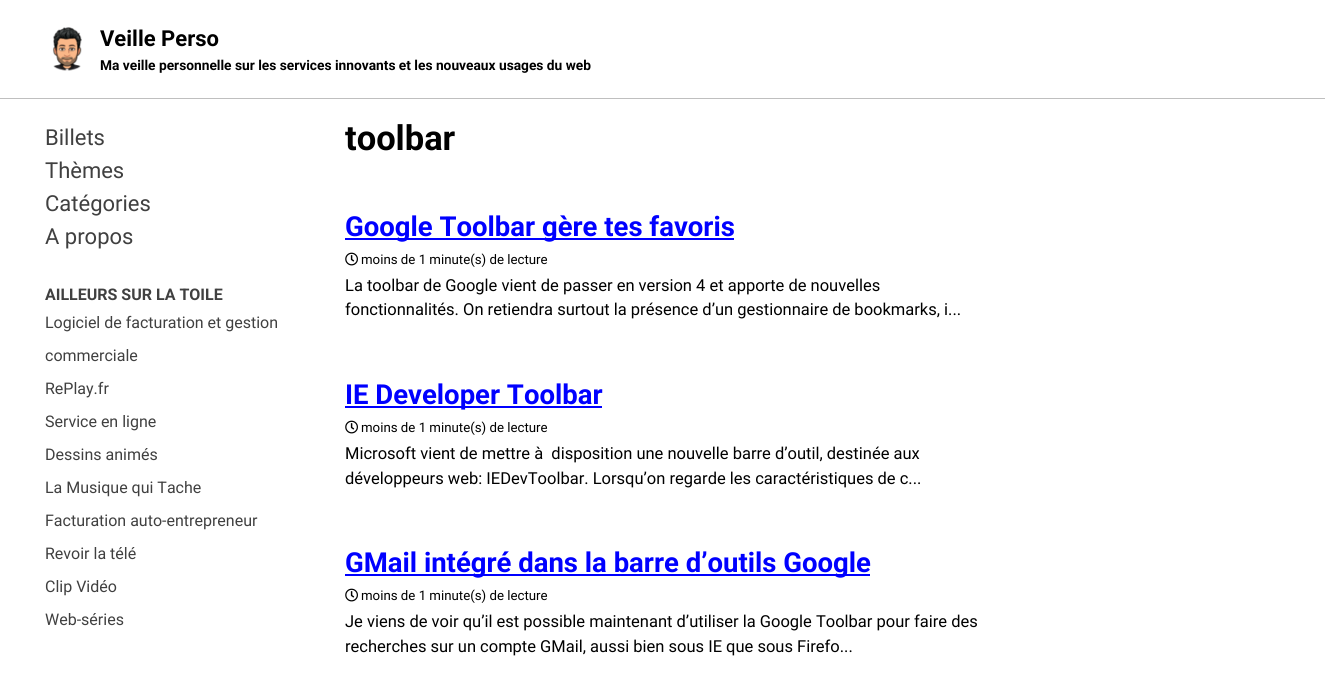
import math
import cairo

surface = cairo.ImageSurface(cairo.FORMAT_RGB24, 1325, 698)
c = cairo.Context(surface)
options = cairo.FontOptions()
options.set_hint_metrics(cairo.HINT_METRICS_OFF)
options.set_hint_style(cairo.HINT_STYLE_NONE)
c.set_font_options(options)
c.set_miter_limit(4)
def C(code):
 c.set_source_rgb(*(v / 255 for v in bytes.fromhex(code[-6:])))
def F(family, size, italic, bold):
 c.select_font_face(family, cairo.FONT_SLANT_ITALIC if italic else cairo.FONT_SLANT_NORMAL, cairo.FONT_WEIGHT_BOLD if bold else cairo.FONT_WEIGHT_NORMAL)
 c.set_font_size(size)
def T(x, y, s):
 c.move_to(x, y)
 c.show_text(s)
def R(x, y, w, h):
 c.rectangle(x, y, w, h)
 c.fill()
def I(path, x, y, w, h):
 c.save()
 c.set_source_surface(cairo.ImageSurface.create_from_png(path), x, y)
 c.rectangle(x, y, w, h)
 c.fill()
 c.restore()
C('ffffff')
c.paint()
C('bfbfbf')
R(0,98,1325,1)
I('1.png',52,27,30,44)
F('Roboto',22,0,1)
C('000000')
T(100,46,'Veille Perso')
F('Roboto',13.75,0,1)
T(100,70,'Ma veille personnelle sur les services innovants et les nouveaux usages du web')
F('Roboto',22,0,0)
C('404040')
T(45,145,'Billets')
T(45,178,'Thèmes')
T(45,211,'Catégories')
T(45,244,'A propos')
F('Roboto',16,0,1)
T(45,300,'AILLEURS SUR LA TOILE')
F('Roboto',16,0,0)
T(45,328,'Logiciel de facturation et gestion')
T(45,361,'commerciale')
T(45,394,'RePlay.fr')
T(45,427,'Service en ligne')
T(45,460,'Dessins animés')
T(45,493,'La Musique qui Tache')
T(45,526,'Facturation auto-entrepreneur')
T(45,559,'Revoir la télé')
T(45,592,'Clip Vidéo')
T(45,625,'Web-séries')
F('Roboto',34.5,0,1)
C('000000')
T(345,150,'toolbar')
C('0000ff')
R(345,238,389,2)
F('Roboto',27.5,0,1)
T(345,236,'Google Toolbar gère tes favoris')
I('2.png',345,252,13,14)
F('Roboto',13.25,0,0)
C('000000')
T(361,264,'moins de 1 minute(s) de lecture')
F('Roboto',16.5,0,0)
T(345,291,'La toolbar de Google vient de passer en version 4 et apporte de nouvelles')
T(345,315,'fonctionnalités. On retiendra surtout la présence d’un gestionnaire de bookmarks, i...')
C('0000ff')
R(345,406,257,2)
F('Roboto',27.5,0,1)
T(345,404,'IE Developer Toolbar')
I('2.png',345,420,13,14)
F('Roboto',13.25,0,0)
C('000000')
T(361,432,'moins de 1 minute(s) de lecture')
F('Roboto',16.5,0,0)
T(345,459,'Microsoft vient de mettre à  disposition une nouvelle barre d’outil, destinée aux')
T(345,484,'développeurs web: IEDevToolbar. Lorsqu’on regarde les caractéristiques de c...')
C('0000ff')
R(345,574,525,2)
F('Roboto',27.5,0,1)
T(345,572,'GMail intégré dans la barre d’outils Google')
I('2.png',345,588,13,14)
F('Roboto',13.25,0,0)
C('000000')
T(361,600,'moins de 1 minute(s) de lecture')
F('Roboto',16.5,0,0)
T(345,627,'Je viens de voir qu’il est possible maintenant d’utiliser la Google Toolbar pour faire des')
T(345,652,'recherches sur un compte GMail, aussi bien sous IE que sous Firefo...')
surface.write_to_png('o.png')
